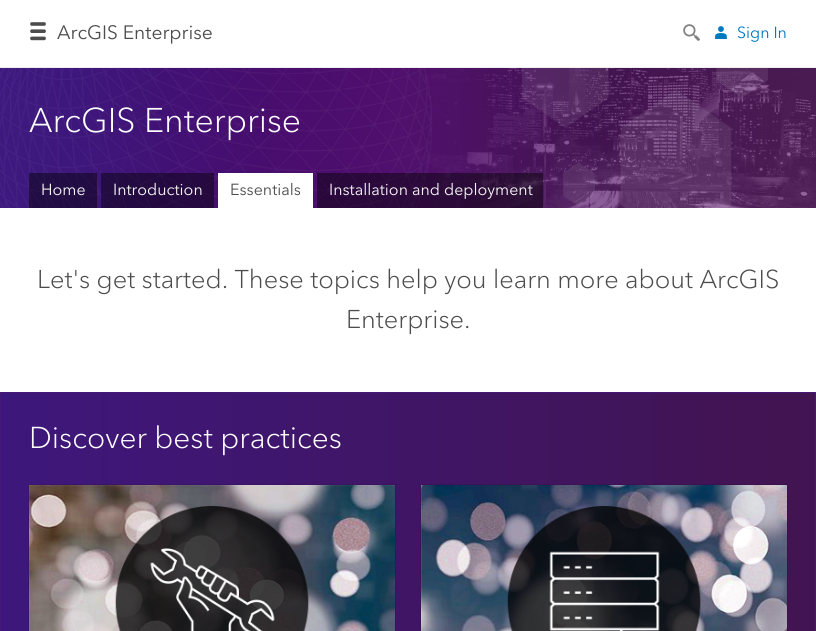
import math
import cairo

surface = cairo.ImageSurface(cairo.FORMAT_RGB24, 816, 631)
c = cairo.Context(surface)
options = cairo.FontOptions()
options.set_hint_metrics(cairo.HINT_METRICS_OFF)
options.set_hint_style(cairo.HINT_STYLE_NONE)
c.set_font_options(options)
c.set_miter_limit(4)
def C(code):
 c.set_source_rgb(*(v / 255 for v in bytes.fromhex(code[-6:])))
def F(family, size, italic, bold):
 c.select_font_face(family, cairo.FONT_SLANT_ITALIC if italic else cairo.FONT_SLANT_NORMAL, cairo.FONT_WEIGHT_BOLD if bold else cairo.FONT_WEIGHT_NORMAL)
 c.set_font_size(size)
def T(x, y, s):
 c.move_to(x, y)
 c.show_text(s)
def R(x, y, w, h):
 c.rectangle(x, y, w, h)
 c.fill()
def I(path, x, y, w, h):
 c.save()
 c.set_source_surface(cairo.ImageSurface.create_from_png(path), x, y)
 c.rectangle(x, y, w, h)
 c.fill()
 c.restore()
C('ffffff')
c.paint()
C('efefef')
R(0,67,816,1)
I('1.png',30,22,16,19)
F('Avenir Next',19.25,0,0)
C('4c4c4c')
T(57,39,'ArcGIS Enterprise')
I('2.png',683,24,17,17)
I('3.png',715,26,12,13)
F('Avenir Next',16,0,0)
C('0079c1')
T(737,38,'Sign In')
I('4.png',0,68,816,140)
F('Avenir Next Light',34,0,0)
C('ffffff')
T(29,132,'ArcGIS Enterprise')
c.set_source_rgba(0,0,0,0.45)
R(29,173,68,35)
F('Avenir Next',16,0,0)
C('f8f8f8')
T(41,195,'Home')
c.set_source_rgba(0,0,0,0.45)
R(101,173,113,35)
C('f8f8f8')
T(113,195,'Introduction')
C('ffffff')
R(218,173,95,35)
C('4c4c4c')
T(230,195,'Essentials')
c.set_source_rgba(0,0,0,0.45)
R(317,173,226,35)
C('f8f8f8')
T(329,195,'Installation and deployment')
F('Avenir Next Light',25.55,0,0)
C('4c4c4c')
T(37,288,'Let\'s get started. These topics help you learn more about ArcGIS')
T(346,328,'Enterprise.')
gradient = cairo.LinearGradient(1,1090,815,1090)
gradient.add_color_stop_rgba(0,0.243,0.09,0.486,1)
gradient.add_color_stop_rgba(1,0.259,0.078,0.314,1)
c.set_source(gradient)
R(1,393,814,238)
c.rectangle(.5,392.5,815,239)
C('461979')
c.set_line_width(1)
c.stroke()
F('Avenir Next Light',30,0,0)
C('ffffff')
T(29,448,'Discover best practices')
c.rectangle(28.5,484.5,367,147)
c.set_source_rgba(0,0,0,0.1)
c.stroke()
I('5.png',29,485,366,146)
c.rectangle(420.5,484.5,367,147)
c.stroke()
I('6.png',421,485,366,146)
surface.write_to_png('o.png')
